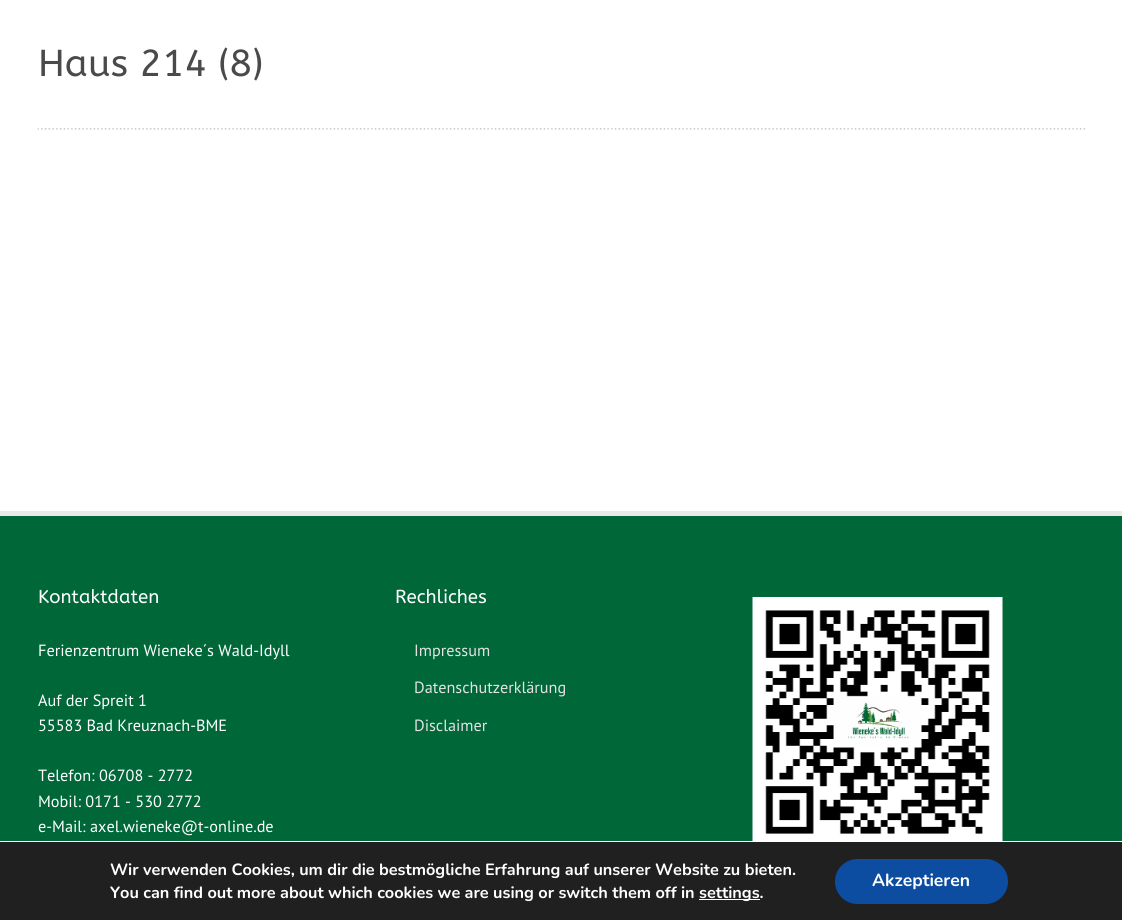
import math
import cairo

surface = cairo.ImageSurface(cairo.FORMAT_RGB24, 1122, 920)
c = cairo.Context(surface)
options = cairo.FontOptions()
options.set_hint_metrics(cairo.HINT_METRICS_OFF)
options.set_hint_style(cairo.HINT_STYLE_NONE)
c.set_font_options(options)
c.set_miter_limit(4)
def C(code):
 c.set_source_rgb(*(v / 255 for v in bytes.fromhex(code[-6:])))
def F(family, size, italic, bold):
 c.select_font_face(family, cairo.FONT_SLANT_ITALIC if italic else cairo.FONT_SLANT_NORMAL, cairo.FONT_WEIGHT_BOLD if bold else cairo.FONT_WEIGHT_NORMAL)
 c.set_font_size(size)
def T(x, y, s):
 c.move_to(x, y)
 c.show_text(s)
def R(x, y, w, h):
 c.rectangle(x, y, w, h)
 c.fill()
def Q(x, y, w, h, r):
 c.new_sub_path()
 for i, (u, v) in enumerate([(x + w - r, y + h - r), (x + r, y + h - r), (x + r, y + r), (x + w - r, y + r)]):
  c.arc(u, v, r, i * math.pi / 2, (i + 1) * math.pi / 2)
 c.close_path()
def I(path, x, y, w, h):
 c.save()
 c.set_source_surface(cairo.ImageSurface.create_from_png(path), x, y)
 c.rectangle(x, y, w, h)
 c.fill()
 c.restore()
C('eaeaea')
c.paint()
C('ffffff')
R(0,0,1122,511)
I('1.png',37,128,1048,2)
F('ABeeZee',37.5,0,0)
C('4a4a4a')
T(38,76,'Haus 214 (8)')
C('006739')
R(0,516,1122,325)
F('ABeeZee',18.75,0,0)
C('ffffff')
T(38,603,'Kontaktdaten')
F('PT Sans',16.25,0,0)
T(38,656,'Ferienzentrum Wieneke´s Wald-Idyll')
T(38,706,'Auf der Spreit 1')
T(38,731,'55583 Bad Kreuznach-BME')
T(38,781,'Telefon: 06708 - 2772')
T(38,807,'Mobil: 0171 - 530 2772')
T(38,832,'e-Mail: axel.wieneke@t-online.de')
F('ABeeZee',18.75,0,0)
T(395,603,'Rechliches')
F('PT Sans',16.25,0,0)
C('e3e3e3')
T(414,656,'Impressum')
T(414,693,'Datenschutzerklärung')
T(414,731,'Disclaimer')
I('2.png',752,597,251,244)
C('202020')
R(0,842,1122,78)
C('ffffff')
R(0,841,1122,1)
F('Nunito',16.25,0,1)
T(110,875,'Wir verwenden Cookies, um dir die bestmögliche Erfahrung auf unserer Website zu bieten.')
T(110,898,'You can find out more about which cookies we are using or switch them off in')
R(699,899,61,1)
T(699,898,'settings.')
C('0c4da2')
Q(835,859,173,45,22.5)
c.fill()
F('Nunito',17.5,0,1)
C('ffffff')
T(872,886,'Akzeptieren')
surface.write_to_png('o.png')
